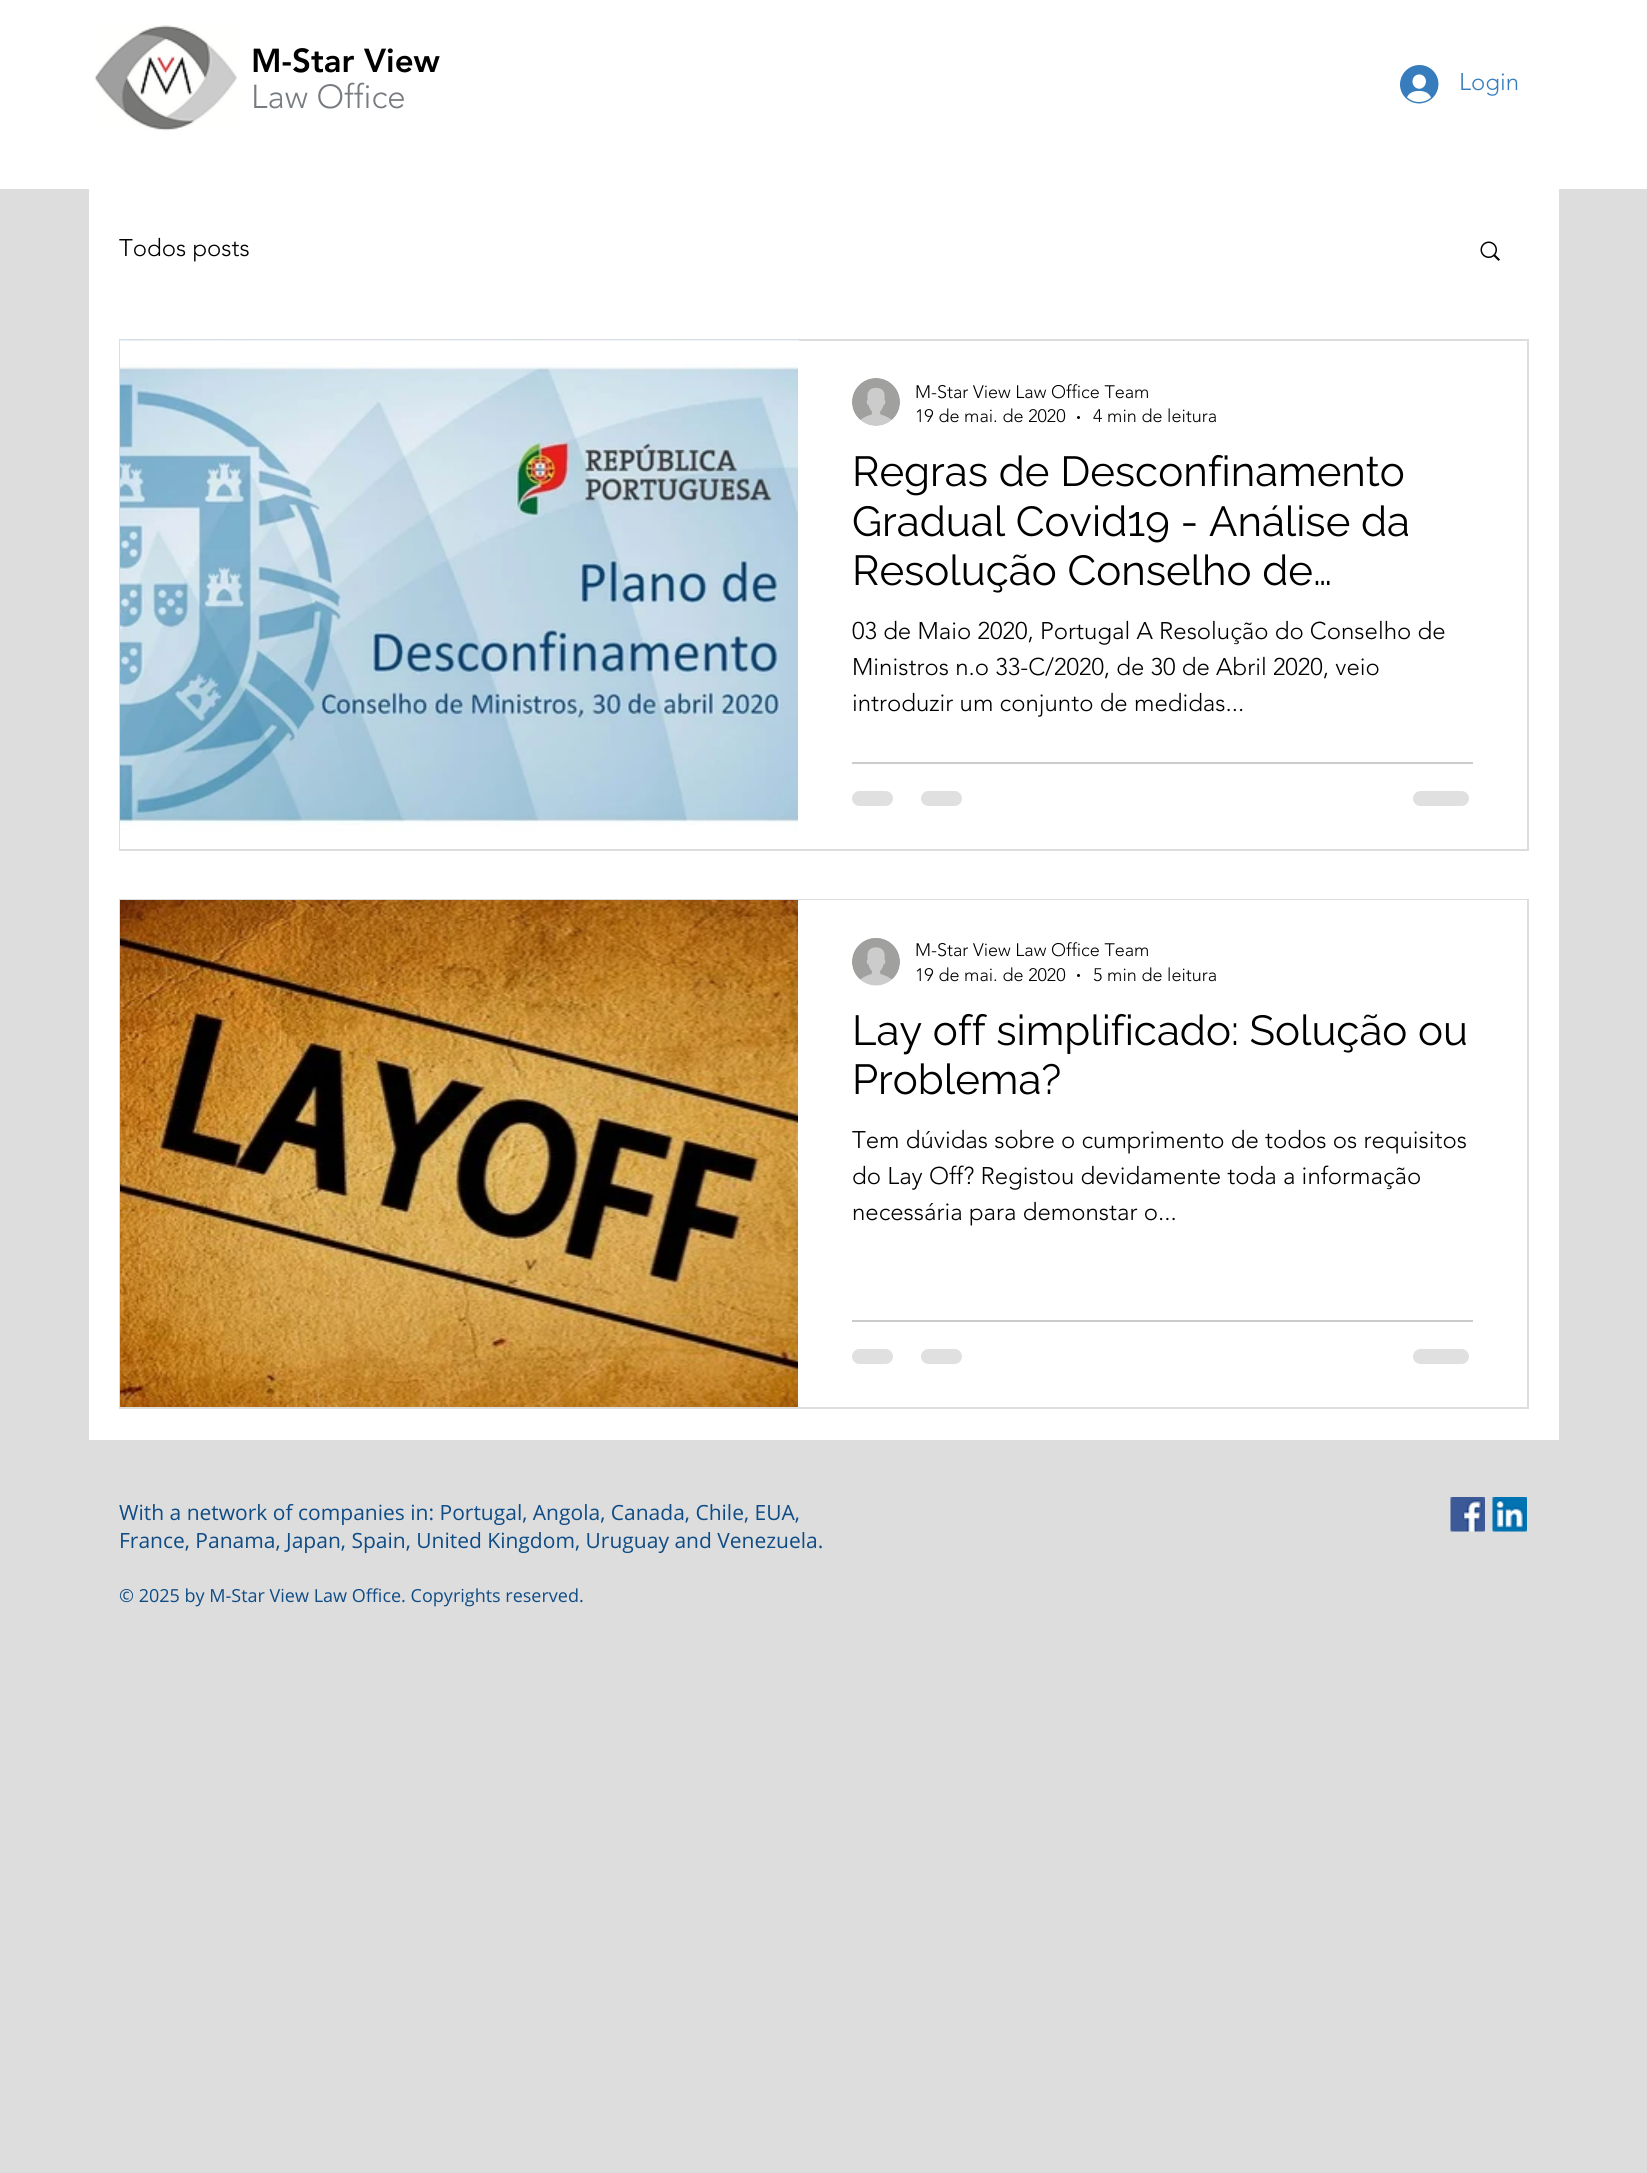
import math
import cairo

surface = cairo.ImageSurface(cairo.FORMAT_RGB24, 1647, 2173)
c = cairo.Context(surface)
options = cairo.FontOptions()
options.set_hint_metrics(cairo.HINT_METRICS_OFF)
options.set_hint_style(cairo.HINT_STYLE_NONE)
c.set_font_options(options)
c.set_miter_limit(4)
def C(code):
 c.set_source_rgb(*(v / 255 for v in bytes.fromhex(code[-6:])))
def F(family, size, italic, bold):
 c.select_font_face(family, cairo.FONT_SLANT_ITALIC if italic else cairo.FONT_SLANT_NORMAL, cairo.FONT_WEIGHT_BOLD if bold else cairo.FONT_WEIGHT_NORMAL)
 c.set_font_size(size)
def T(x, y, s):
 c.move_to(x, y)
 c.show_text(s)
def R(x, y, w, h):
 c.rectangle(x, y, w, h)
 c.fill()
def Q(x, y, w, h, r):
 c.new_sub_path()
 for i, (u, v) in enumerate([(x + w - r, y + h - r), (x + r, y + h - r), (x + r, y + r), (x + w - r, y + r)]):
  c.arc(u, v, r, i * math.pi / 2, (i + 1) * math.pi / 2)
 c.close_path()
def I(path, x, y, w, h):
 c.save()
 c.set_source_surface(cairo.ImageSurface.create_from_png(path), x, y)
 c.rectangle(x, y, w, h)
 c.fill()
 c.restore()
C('dddddd')
c.paint()
C('ffffff')
R(0,0,1647,189)
I('1.png',94,25,143,106)
F('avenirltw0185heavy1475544 Black',33,0,0)
C('000000')
T(251,72,'M-Star View')
F('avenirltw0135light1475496 Light',33,0,0)
C('777b80')
T(251,108,'Law Office')
I('2.png',1400,65,39,39)
F('avenirltw0135light1475496 Light',24,0,0)
C('377dbd')
T(1459,90,'Login')
C('ffffff')
R(89,189,1470,1251)
C('000000')
T(119,256,'Todos posts')
I('3.png',1480,241,20,20)
c.rectangle(120,340,1408,510)
C('dddddd')
c.stroke()
I('4.png',120,340,679,1)
I('5.png',120,341,678,508)
I('6.png',852,378,48,48)
F('avenirltw0135light1475496 Light',18,0,0)
C('000000')
T(915,398,'M-Star View Law Office Team')
T(915,422,'19 de mai. de 2020')
c.new_path()
c.arc(1078.5,417.5,1.5,0,2 * math.pi)
c.fill()
T(1093,422,'4 min de leitura')
F('Raleway',42,0,0)
T(852,486,'Regras de Desconfinamento')
T(852,536,'Gradual Covid19 - Análise da')
T(852,585,'Resolução Conselho de…')
F('avenirltw0135light1475496 Light',24,0,0)
T(852,639,'03 de Maio 2020, Portugal A Resolução do Conselho de')
T(852,675,'Ministros n.o 33-C/2020, de 30 de Abril 2020, veio')
T(852,711,'introduzir um conjunto de medidas...')
C('cccccc')
R(852,762,621,2)
C('e0e0e0')
Q(852,791,41,15,7.5)
c.fill()
Q(921,791,41,15,7.5)
c.fill()
Q(1413,791,56,15,7.5)
c.fill()
c.rectangle(120,900,1408,508)
C('dddddd')
c.stroke()
I('7.png',120,900,678,507)
C('ffffff')
R(798,900,729,1)
I('8.png',852,938,48,48)
F('avenirltw0135light1475496 Light',18,0,0)
C('000000')
T(915,956,'M-Star View Law Office Team')
T(915,981,'19 de mai. de 2020')
c.new_path()
c.arc(1078.5,975.5,1.5,0,2 * math.pi)
c.fill()
T(1093,981,'5 min de leitura')
F('Raleway',42,0,0)
T(852,1045,'Lay off simplificado: Solução ou')
T(852,1094,'Problema?')
F('avenirltw0135light1475496 Light',24,0,0)
T(852,1148,'Tem dúvidas sobre o cumprimento de todos os requisitos')
T(852,1184,'do Lay Off? Registou devidamente toda a informação')
T(852,1220,'necessária para demonstar o...')
C('cccccc')
R(852,1320,621,2)
C('e0e0e0')
Q(852,1349,41,15,7.5)
c.fill()
Q(921,1349,41,15,7.5)
c.fill()
Q(1413,1349,56,15,7.5)
c.fill()
F('Open Sans',21,0,0)
C('0f4c85')
T(119,1520,'With a network of companies in: Portugal, Angola, Canada, Chile, EUA,')
T(119,1548,'France, Panama, Japan, Spain, United Kingdom, Uruguay and Venezuela.')
F('Open Sans',18,0,0)
T(119,1602,'© 2025 by M-Star View Law Office. Copyrights reserved.')
I('9.png',1450,1497,35,35)
I('10.png',1492,1497,35,35)
surface.write_to_png('o.png')
